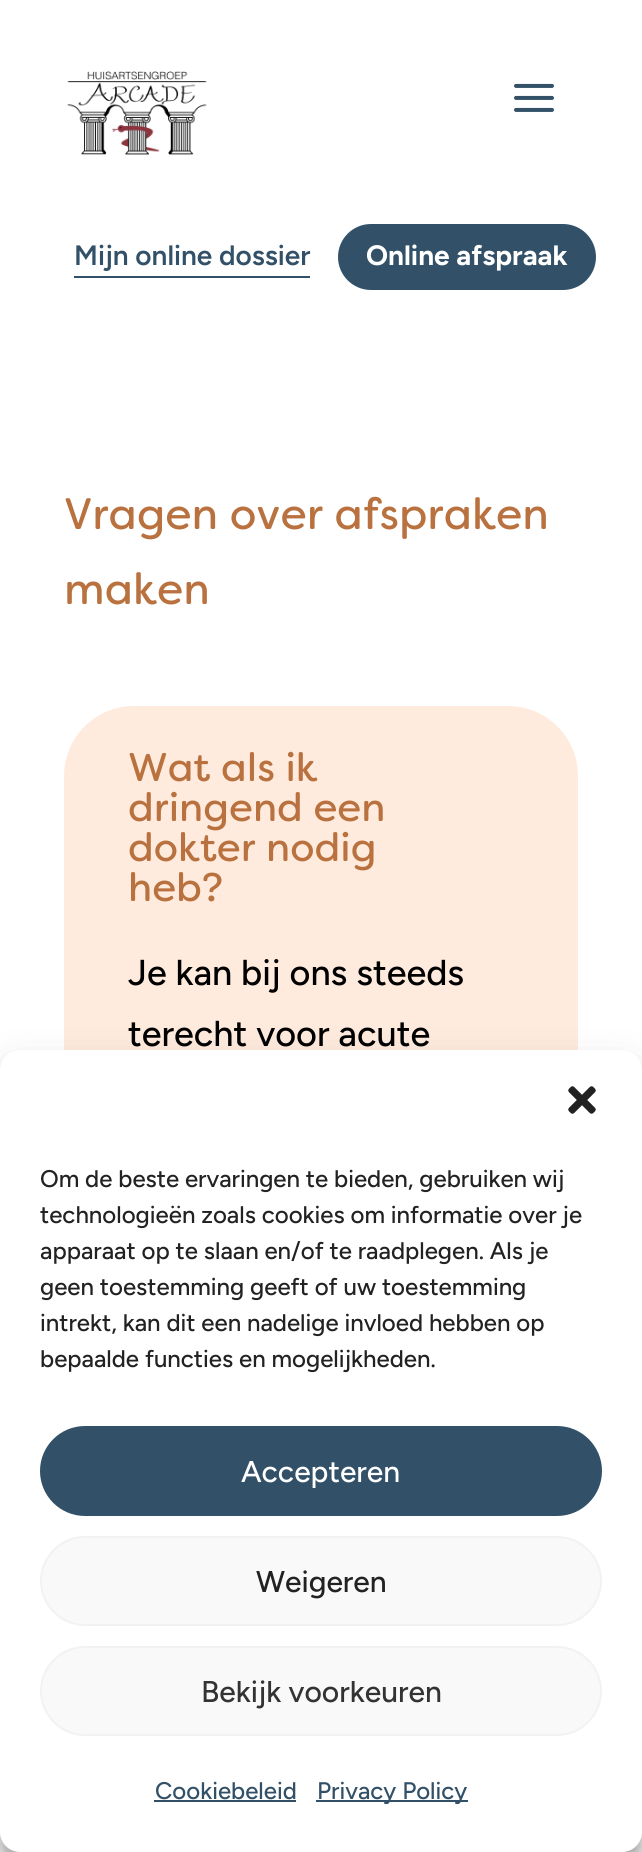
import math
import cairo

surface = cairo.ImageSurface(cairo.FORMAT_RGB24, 642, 1852)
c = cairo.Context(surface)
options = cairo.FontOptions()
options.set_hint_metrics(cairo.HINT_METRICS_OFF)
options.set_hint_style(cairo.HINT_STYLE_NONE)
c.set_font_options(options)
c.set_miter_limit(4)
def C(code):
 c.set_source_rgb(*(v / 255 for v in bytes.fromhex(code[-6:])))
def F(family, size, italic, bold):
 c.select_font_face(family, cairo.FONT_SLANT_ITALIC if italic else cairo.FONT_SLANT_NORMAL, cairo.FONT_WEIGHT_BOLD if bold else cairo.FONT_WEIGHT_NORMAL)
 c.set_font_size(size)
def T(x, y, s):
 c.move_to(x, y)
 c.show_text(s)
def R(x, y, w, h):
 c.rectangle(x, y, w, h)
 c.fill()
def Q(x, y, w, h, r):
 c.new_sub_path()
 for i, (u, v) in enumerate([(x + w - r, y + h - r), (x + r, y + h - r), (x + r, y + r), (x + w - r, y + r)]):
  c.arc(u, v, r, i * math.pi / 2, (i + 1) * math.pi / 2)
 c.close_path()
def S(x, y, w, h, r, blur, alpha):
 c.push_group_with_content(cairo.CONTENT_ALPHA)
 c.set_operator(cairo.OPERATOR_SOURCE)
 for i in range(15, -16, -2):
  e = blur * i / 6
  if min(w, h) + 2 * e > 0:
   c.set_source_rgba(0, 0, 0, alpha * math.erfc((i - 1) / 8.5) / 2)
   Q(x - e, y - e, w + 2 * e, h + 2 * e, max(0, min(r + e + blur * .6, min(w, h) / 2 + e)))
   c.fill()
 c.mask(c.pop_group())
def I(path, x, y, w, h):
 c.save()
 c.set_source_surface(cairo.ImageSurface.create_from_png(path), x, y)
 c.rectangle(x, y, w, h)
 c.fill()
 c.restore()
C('ffffff')
c.paint()
I('1.png',67,71,140,84)
I('2.png',514,83,40,29)
F('Figtree SemiBold',28,0,0)
C('325168')
T(74,265,'Mijn online dossier')
R(74,276,236,2)
Q(338,224,258,66,33)
c.fill()
F('Figtree',28,0,1)
C('ffffff')
T(366,265,'Online afspraak')
F('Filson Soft',44,0,0)
C('b9723f')
T(64,529,'Vragen over afspraken')
T(64,604,'maken')
C('ffebdd')
Q(64,706,514,1134,70)
c.fill()
F('Filson Soft',40,0,0)
C('b9723f')
T(128,781,'Wat als ik')
T(128,821,'dringend een')
T(128,861,'dokter nodig')
T(128,901,'heb?')
F('Figtree Medium',36,0,0)
C('000000')
T(128,985,'Je kan bij ons steeds')
T(128,1046,'terecht voor acute')
C('000000')
S(0,1062,642,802,20,6,.23)
S(0,1070,642,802,20,20,.19)
C('ffffff')
Q(0,1050,642,802,20)
c.fill()
I('3.png',568,1086,28,28)
F('Figtree Medium',24,0,0)
C('222222')
T(40,1187,'Om de beste ervaringen te bieden, gebruiken wij')
T(40,1223,'technologieën zoals cookies om informatie over je')
T(40,1259,'apparaat op te slaan en/of te raadplegen. Als je')
T(40,1295,'geen toestemming geeft of uw toestemming')
T(40,1331,'intrekt, kan dit een nadelige invloed hebben op')
T(40,1367,'bepaalde functies en mogelijkheden.')
C('325168')
Q(41,1427,560,88,44)
c.fill_preserve()
c.stroke()
F('Figtree Medium',30,0,0)
C('ffffff')
T(241,1482,'Accepteren')
C('f9f9f9')
Q(41,1537,560,88,44)
c.fill_preserve()
C('f2f2f2')
c.stroke()
C('222222')
T(256,1592,'Weigeren')
C('f9f9f9')
Q(41,1647,560,88,44)
c.fill_preserve()
C('f2f2f2')
c.stroke()
C('333333')
T(201,1702,'Bekijk voorkeuren')
F('Figtree Medium',24,0,0)
C('325168')
T(155,1799,'Cookiebeleid')
R(154,1800,142,2)
R(316,1800,152,2)
T(317,1799,'Privacy Policy')
surface.write_to_png('o.png')
